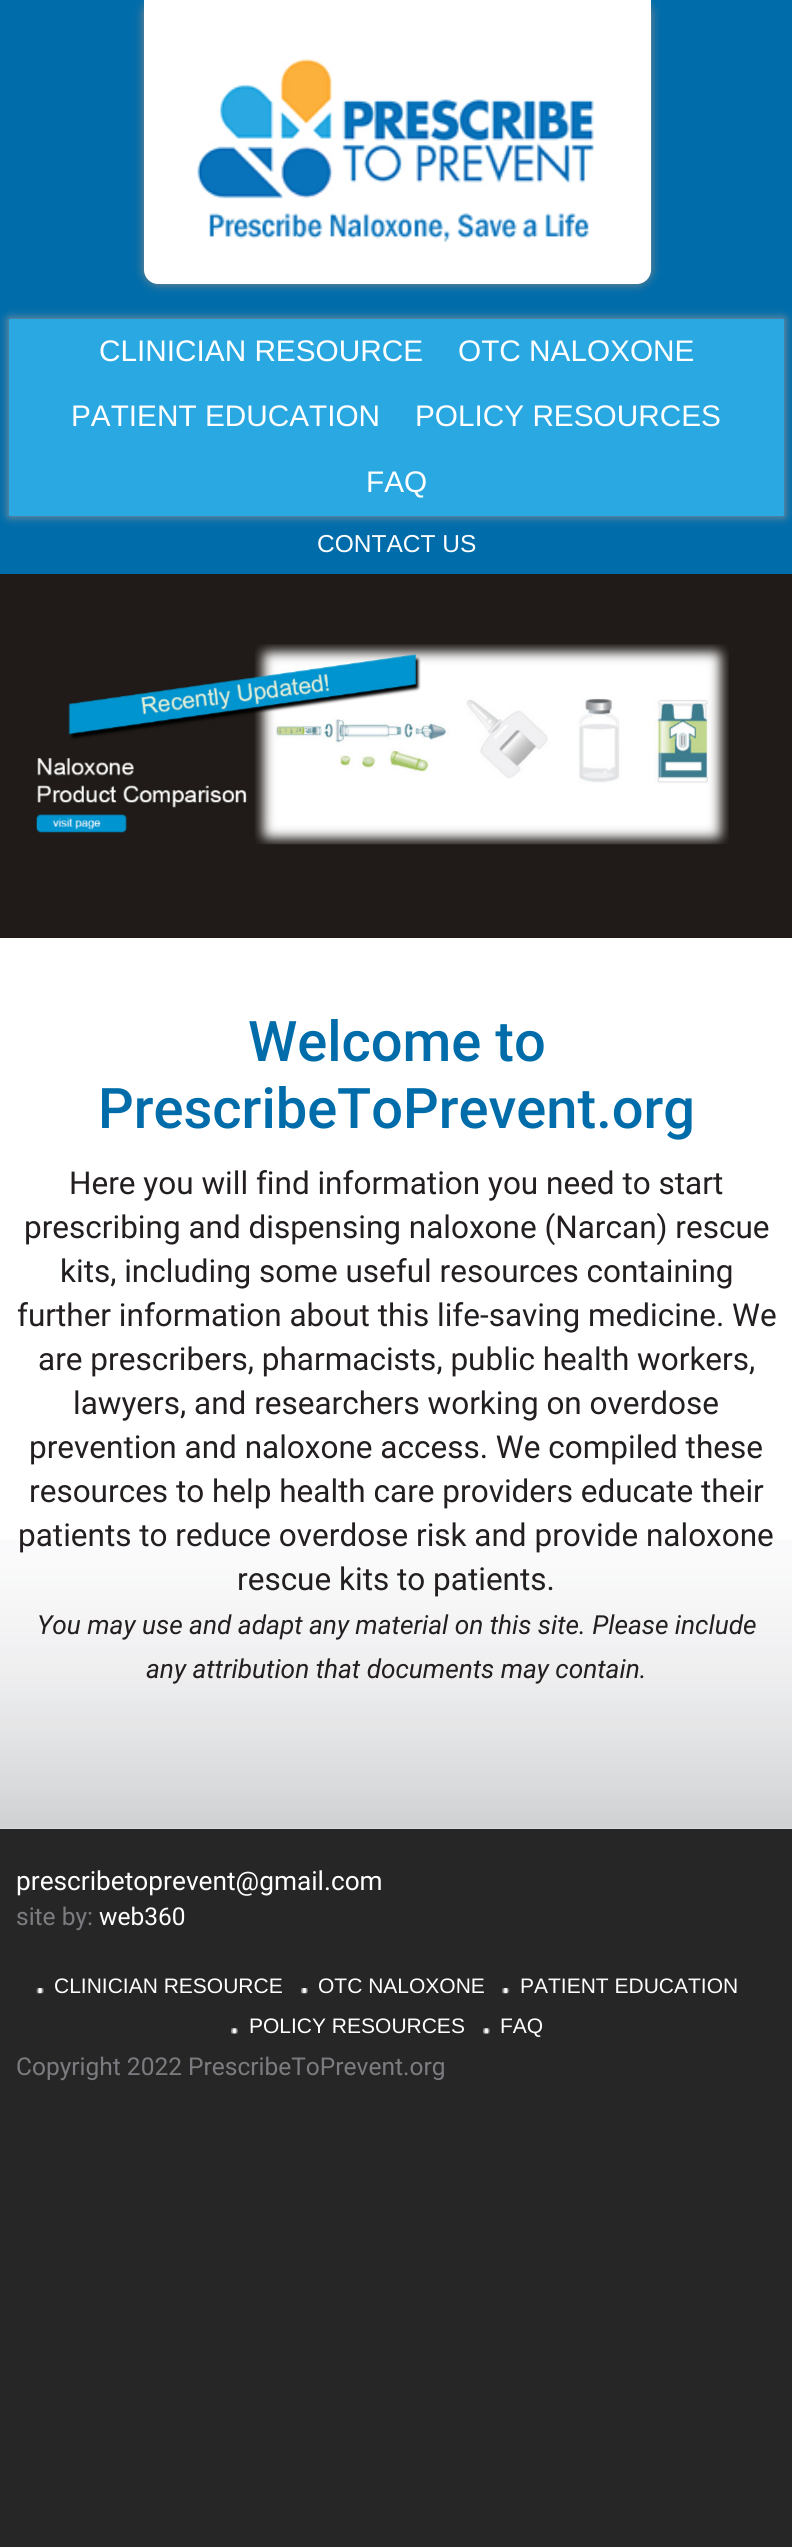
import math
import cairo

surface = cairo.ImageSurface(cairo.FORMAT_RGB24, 792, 2547)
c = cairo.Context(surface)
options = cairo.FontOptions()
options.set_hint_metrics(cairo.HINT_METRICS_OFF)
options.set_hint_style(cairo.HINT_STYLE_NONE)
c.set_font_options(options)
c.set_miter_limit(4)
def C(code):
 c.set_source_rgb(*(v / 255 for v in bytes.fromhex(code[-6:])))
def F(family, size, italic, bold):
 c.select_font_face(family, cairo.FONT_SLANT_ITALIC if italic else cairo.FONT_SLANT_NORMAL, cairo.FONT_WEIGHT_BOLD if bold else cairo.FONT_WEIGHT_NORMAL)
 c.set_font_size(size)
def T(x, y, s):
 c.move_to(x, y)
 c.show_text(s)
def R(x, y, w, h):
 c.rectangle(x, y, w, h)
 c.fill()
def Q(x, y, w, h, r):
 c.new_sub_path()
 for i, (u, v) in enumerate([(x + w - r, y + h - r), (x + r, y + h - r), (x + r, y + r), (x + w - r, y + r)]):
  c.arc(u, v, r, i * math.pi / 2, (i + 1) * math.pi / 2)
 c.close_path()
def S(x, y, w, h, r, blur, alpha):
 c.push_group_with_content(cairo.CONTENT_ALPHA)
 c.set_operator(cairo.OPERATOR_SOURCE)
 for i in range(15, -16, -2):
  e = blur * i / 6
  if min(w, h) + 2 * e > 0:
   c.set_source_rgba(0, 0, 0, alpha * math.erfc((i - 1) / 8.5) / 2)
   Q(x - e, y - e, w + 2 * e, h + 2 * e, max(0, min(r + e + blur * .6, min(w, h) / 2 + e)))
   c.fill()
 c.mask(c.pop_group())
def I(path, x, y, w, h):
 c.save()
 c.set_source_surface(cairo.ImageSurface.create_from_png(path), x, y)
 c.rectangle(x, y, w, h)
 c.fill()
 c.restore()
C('262626')
c.paint()
C('006caa')
R(0,0,792,574)
C('888888')
S(144,0,507,284,14,5,1)
C('ffffff')
c.new_path()
c.move_to(144,0)
c.line_to(651,0)
c.line_to(651,270)
c.curve_to(651,277.5,644.5,284,637,284)
c.line_to(158,284)
c.curve_to(150.5,284,144,277.5,144,270)
c.close_path()
c.fill()
I('1.png',197,59,397,183)
C('999999')
S(9,319,775,197,0,5,1)
C('2aa8e2')
R(9,319,775,197)
F('Liberation Sans',29.75,0,0)
C('ffffff')
T(99,361,'CLINICIAN RESOURCE')
T(458,361,'OTC NALOXONE')
T(71,426,'PATIENT EDUCATION')
T(415,426,'POLICY RESOURCES')
T(366,492,'FAQ')
F('Liberation Sans',24.5,0,0)
T(317,552,'CONTACT US')
C('201b18')
R(0,574,792,364)
I('2.png',36,644,693,201)
C('ffffff')
R(0,938,792,891)
I('3.png',0,1540,792,289)
F('Roboto Medium',56,0,0)
C('006caa')
T(248,1061,'Welcome to')
T(98,1128,'PrescribeToPrevent.org')
F('Roboto',31.5,0,0)
C('231f20')
T(69,1194,'Here you will find information you need to start')
T(24,1238,'prescribing and dispensing naloxone (Narcan) rescue')
T(60,1282,'kits, including some useful resources containing')
T(17,1326,'further information about this life-saving medicine. We')
T(38,1370,'are prescribers, pharmacists, public health workers,')
T(73,1414,'lawyers, and researchers working on overdose')
T(29,1458,'prevention and naloxone access. We compiled these')
T(29,1502,'resources to help health care providers educate their')
T(18,1546,'patients to reduce overdose risk and provide naloxone')
T(237,1590,'rescue kits to patients.')
F('Roboto',26.25,1,0)
T(37,1634,'You may use and adapt any material on this site. Please include')
T(146,1678,'any attribution that documents may contain.')
F('Roboto',26.25,0,0)
C('ffffff')
T(16,1890,'prescribetoprevent@gmail.com')
F('Roboto',24.5,0,0)
C('7b7c7f')
T(16,1925,'site by:')
C('ffffff')
T(99,1925,'web360')
I('4.png',36,1988,8,6)
F('Liberation Sans',21,0,0)
T(54,1993,'CLINICIAN RESOURCE')
I('5.png',301,1988,7,6)
T(318,1993,'OTC NALOXONE')
I('6.png',502,1988,8,6)
T(520,1993,'PATIENT EDUCATION')
I('7.png',231,2028,7,6)
T(249,2033,'POLICY RESOURCES')
I('7.png',483,2028,7,6)
T(500,2033,'FAQ')
F('Roboto',24.5,0,0)
C('7b7c7f')
T(16,2075,'Copyright 2022 PrescribeToPrevent.org')
surface.write_to_png('o.png')
